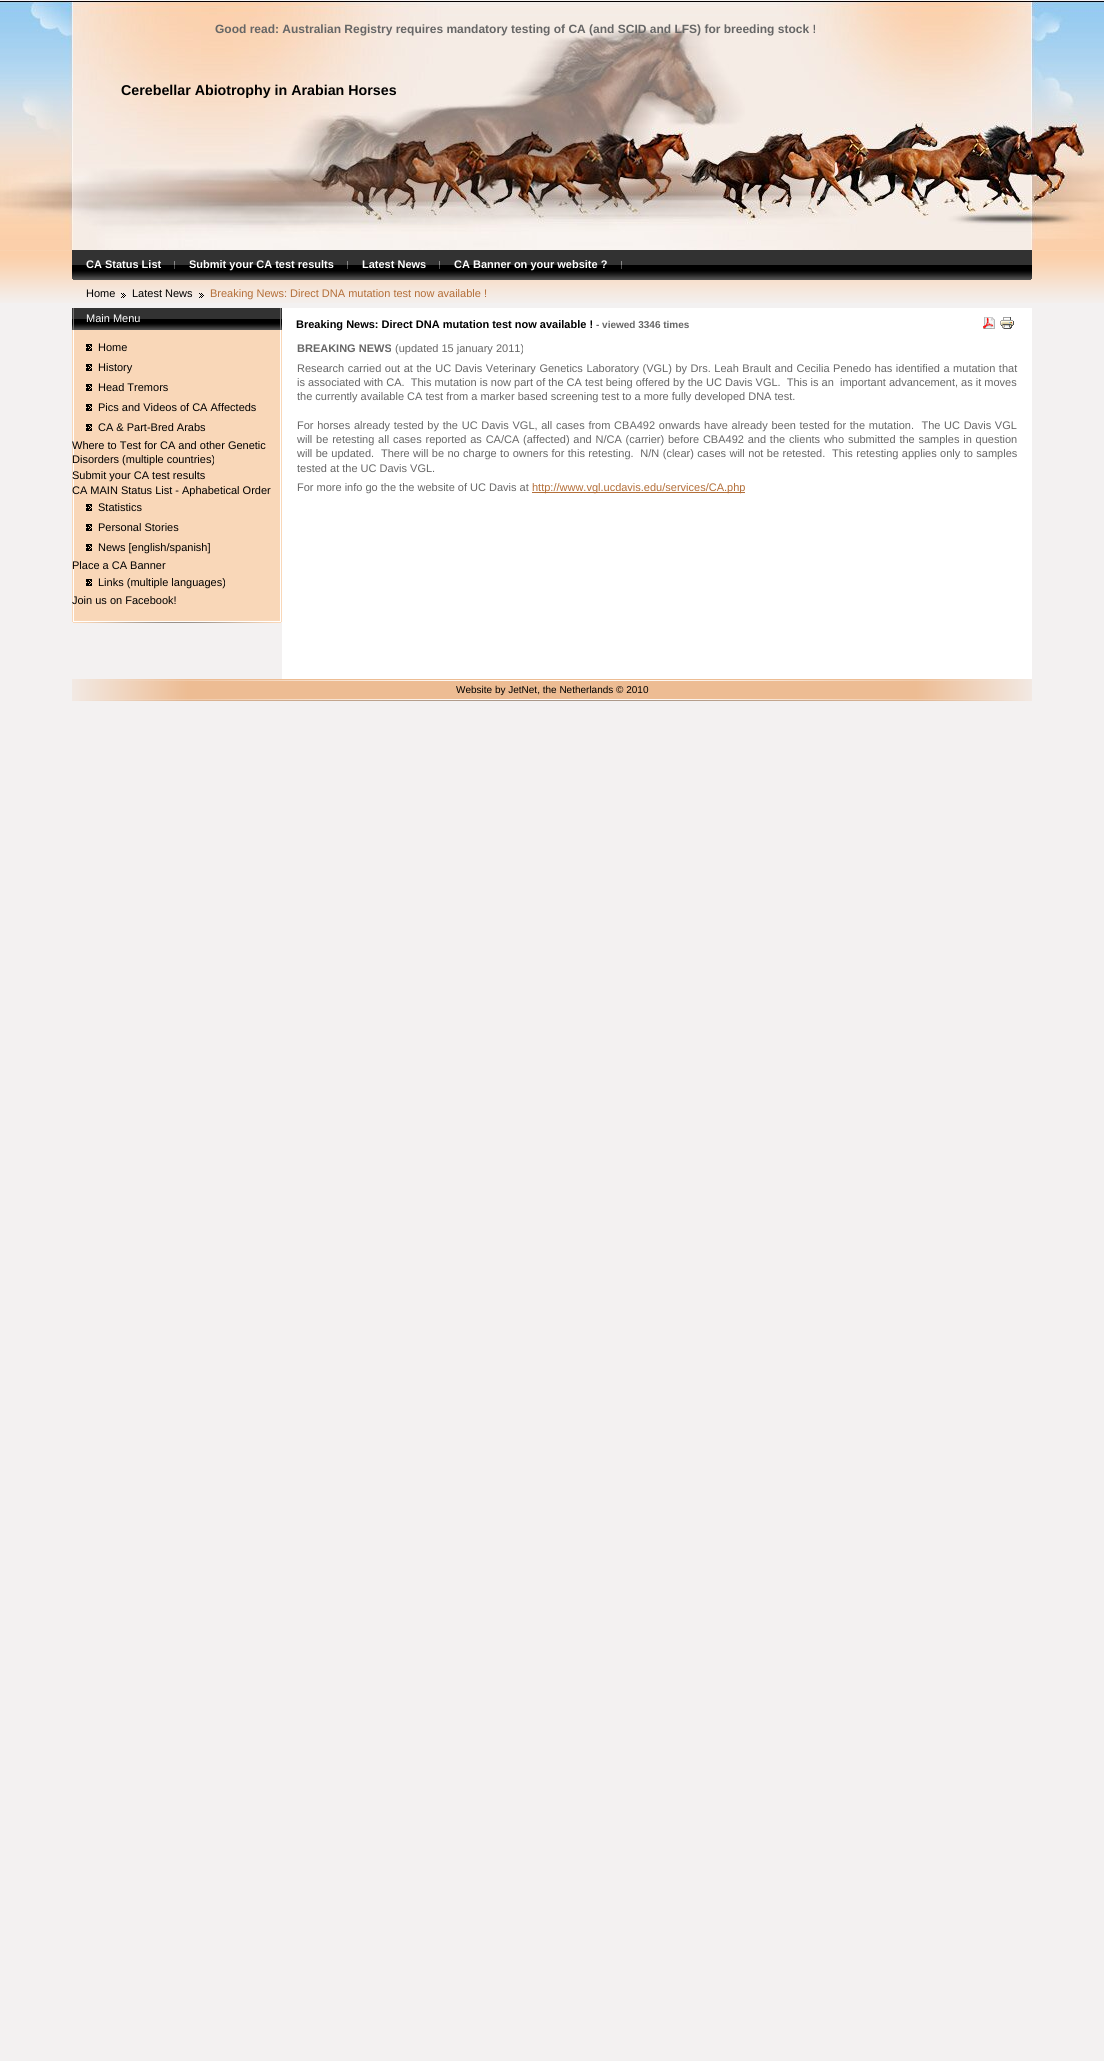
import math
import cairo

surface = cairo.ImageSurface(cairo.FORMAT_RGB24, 1104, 2061)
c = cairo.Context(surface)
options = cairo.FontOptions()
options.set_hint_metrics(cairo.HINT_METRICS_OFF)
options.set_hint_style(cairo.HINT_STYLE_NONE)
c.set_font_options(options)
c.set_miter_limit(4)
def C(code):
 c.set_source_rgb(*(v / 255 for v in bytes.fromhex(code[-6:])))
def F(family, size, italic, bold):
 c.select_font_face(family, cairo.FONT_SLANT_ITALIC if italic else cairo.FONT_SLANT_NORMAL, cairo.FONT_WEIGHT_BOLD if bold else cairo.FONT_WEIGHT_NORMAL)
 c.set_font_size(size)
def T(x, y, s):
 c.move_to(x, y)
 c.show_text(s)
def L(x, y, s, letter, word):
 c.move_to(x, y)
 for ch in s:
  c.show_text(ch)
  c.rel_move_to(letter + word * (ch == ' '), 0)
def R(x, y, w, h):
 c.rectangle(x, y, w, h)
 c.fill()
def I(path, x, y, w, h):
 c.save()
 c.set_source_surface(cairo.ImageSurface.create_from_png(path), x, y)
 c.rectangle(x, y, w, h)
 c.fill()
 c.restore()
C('f3f1f1')
c.paint()
I('1.png',0,250,1104,53)
I('2.png',0,0,1104,250)
I('3.png',73,0,958,250)
F('Liberation Sans',12,0,1)
C('666666')
T(215,33,'Good read: Australian Registry requires mandatory testing of CA (and SCID and LFS) for breeding stock !')
F('Liberation Sans',14.25,0,1)
C('000000')
T(121,95,'Cerebellar Abiotrophy in Arabian Horses')
I('4.png',72,250,960,30)
I('5.png',174,261,1,8)
F('Liberation Sans',11,0,1)
C('ffffff')
T(86,268,'CA Status List')
I('5.png',347,261,1,8)
T(189,268,'Submit your CA test results')
I('5.png',439,261,1,8)
T(362,268,'Latest News')
I('5.png',621,261,1,8)
T(454,268,'CA Banner on your website ?')
F('Liberation Sans',11,0,0)
C('000000')
T(86,297,'Home')
I('6.png',121,293,5,5)
T(132,297,'Latest News')
I('6.png',199,293,5,5)
C('b36e38')
T(210,297,'Breaking News: Direct DNA mutation test now available !')
C('ffffff')
R(282,308,750,371)
I('7.png',72,330,210,291)
I('8.png',72,621,210,2)
I('9.png',72,308,210,22)
T(86,322,'Main Menu')
I('10.png',86,344,6,7)
C('000000')
T(98,351,'Home')
I('10.png',86,364,6,7)
T(98,371,'History')
I('10.png',86,384,6,7)
T(98,391,'Head Tremors')
I('10.png',86,404,6,7)
T(98,411,'Pics and Videos of CA Affecteds')
I('10.png',86,424,6,7)
T(98,431,'CA & Part-Bred Arabs')
T(72,449,'Where to Test for CA and other Genetic')
T(72,463,'Disorders (multiple countries)')
T(72,479,'Submit your CA test results')
T(72,494,'CA MAIN Status List - Aphabetical Order')
I('10.png',86,504,6,7)
T(98,511,'Statistics')
I('10.png',86,524,6,7)
T(98,531,'Personal Stories')
I('10.png',86,544,6,7)
T(98,551,'News [english/spanish]')
T(72,569,'Place a CA Banner')
I('10.png',86,579,6,7)
T(98,586,'Links (multiple languages)')
T(72,604,'Join us on Facebook!')
F('Liberation Sans',11,0,1)
T(296,328,'Breaking News: Direct DNA mutation test now available !')
F('Liberation Sans',10,0,1)
C('666666')
T(596,328,'- viewed 3346 times')
I('11.png',983,317,12,12)
I('12.png',1000,317,14,12)
F('Liberation Sans',11,0,1)
T(297,352,'BREAKING NEWS')
F('Liberation Sans',11,0,0)
T(395,352,'(updated 15 january 2011)')
L(297,372,'Research carried out at the UC Davis Veterinary Genetics Laboratory (VGL) by Drs. Leah Brault and Cecilia Penedo has identified a mutation that',0,.5)
T(297,386,'is associated with CA.  This mutation is now part of the CA test being offered by the UC Davis VGL.  This is an')
T(840,386,'important advancement, as it moves')
T(297,400,'the currently available CA test from a marker based screening test to a more fully developed DNA test.')
L(297,429,'For horses already tested by the UC Davis VGL, all cases from CBA492 onwards have already been tested for the mutation.  The UC Davis VGL',0,.65)
L(297,443,'will be retesting all cases reported as CA/CA (affected) and N/CA (carrier) before CBA492 and the clients who submitted the samples in question',0,.75)
L(297,457,'will be updated.  There will be no charge to owners for this retesting.  N/N (clear) cases will not be retested.  This retesting applies only to samples',0,.35)
T(297,472,'tested at the UC Davis VGL.')
T(297,491,'For more info go the the website of UC Davis at')
C('b36e38')
R(532,492,213,1)
T(532,491,'http://www.vgl.ucdavis.edu/services/CA.php')
I('13.png',72,679,960,22)
F('Liberation Sans',10,0,0)
C('000000')
T(456,693,'Website by JetNet, the Netherlands © 2010')
surface.write_to_png('o.png')
